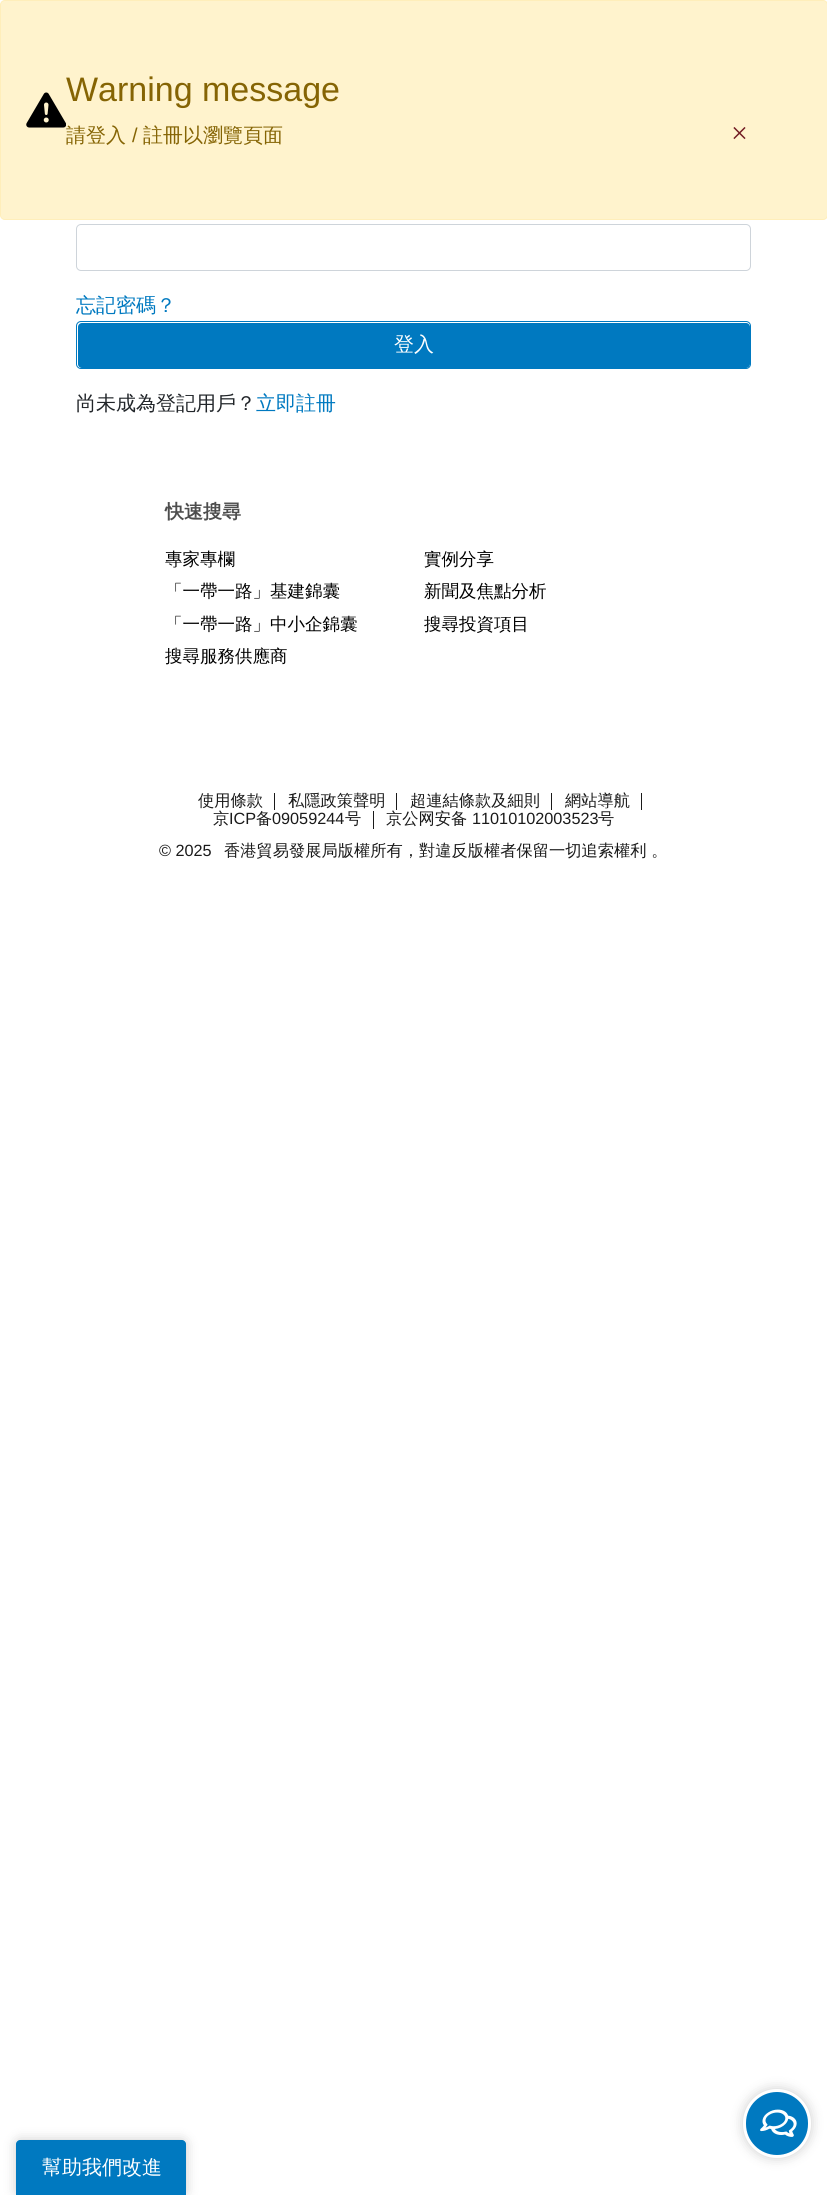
import math
import cairo

surface = cairo.ImageSurface(cairo.FORMAT_RGB24, 827, 2195)
c = cairo.Context(surface)
options = cairo.FontOptions()
options.set_hint_metrics(cairo.HINT_METRICS_OFF)
options.set_hint_style(cairo.HINT_STYLE_NONE)
c.set_font_options(options)
c.set_miter_limit(4)
def C(code):
 c.set_source_rgb(*(v / 255 for v in bytes.fromhex(code[-6:])))
def F(family, size, italic, bold):
 c.select_font_face(family, cairo.FONT_SLANT_ITALIC if italic else cairo.FONT_SLANT_NORMAL, cairo.FONT_WEIGHT_BOLD if bold else cairo.FONT_WEIGHT_NORMAL)
 c.set_font_size(size)
def T(x, y, s):
 c.move_to(x, y)
 c.show_text(s)
def R(x, y, w, h):
 c.rectangle(x, y, w, h)
 c.fill()
def Q(x, y, w, h, r):
 c.new_sub_path()
 for i, (u, v) in enumerate([(x + w - r, y + h - r), (x + r, y + h - r), (x + r, y + r), (x + w - r, y + r)]):
  c.arc(u, v, r, i * math.pi / 2, (i + 1) * math.pi / 2)
 c.close_path()
def S(x, y, w, h, r, blur, alpha):
 c.push_group_with_content(cairo.CONTENT_ALPHA)
 c.set_operator(cairo.OPERATOR_SOURCE)
 for i in range(15, -16, -2):
  e = blur * i / 6
  if min(w, h) + 2 * e > 0:
   c.set_source_rgba(0, 0, 0, alpha * math.erfc((i - 1) / 8.5) / 2)
   Q(x - e, y - e, w + 2 * e, h + 2 * e, max(0, min(r + e + blur * .6, min(w, h) / 2 + e)))
   c.fill()
 c.mask(c.pop_group())
def I(path, x, y, w, h):
 c.save()
 c.set_source_surface(cairo.ImageSurface.create_from_png(path), x, y)
 c.rectangle(x, y, w, h)
 c.fill()
 c.restore()
C('ffffff')
c.paint()
C('fff3cd')
Q(.5,.5,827,219,4.5)
c.fill_preserve()
C('ffeeba')
c.set_line_width(1)
c.stroke()
I('1.png',26,92,40,36)
F('Liberation Sans',34,0,0)
C('856404')
T(66,101,'Warning message')
F('WenQuanYi Zen Hei Medium',20,0,0)
T(66,142,'請登入')
F('Liberation Sans',20,0,0)
T(132,142,'/')
F('WenQuanYi Zen Hei Medium',20,0,0)
T(143,142,'註冊以瀏覽頁面')
F('Liberation Serif',30,0,0)
C('721c24')
T(731,143,'×')
Q(76.5,224.5,674,46,4.5)
C('ced4da')
c.stroke()
F('WenQuanYi Zen Hei Medium',20,0,0)
C('0079c0')
T(76,312,'忘記密碼？')
Q(78,323,672,45,4)
c.fill()
Q(76.5,321.5,674,47,4.5)
c.stroke()
C('ffffff')
T(394,351,'登入')
C('212529')
T(76,410,'尚未成為登記用戶？')
C('0079c0')
T(256,410,'立即註冊')
F('WenQuanYi Zen Hei',19,0,1)
C('4d4d4d')
T(165,518,'快速搜尋')
F('WenQuanYi Zen Hei Medium',17.5,0,0)
C('000000')
T(165,565,'專家專欄')
T(424,565,'實例分享')
T(165,597,'「一帶一路」基建錦囊')
T(424,597,'新聞及焦點分析')
T(165,630,'「一帶一路」中小企錦囊')
T(424,630,'搜尋投資項目')
T(165,662,'搜尋服務供應商')
F('WenQuanYi Zen Hei Medium',16.25,0,0)
C('1a1a1a')
T(198,806,'使用條款')
R(274,793,1,17)
T(288,806,'私隱政策聲明')
R(396,793,1,17)
T(410,806,'超連結條款及細則')
R(551,793,1,17)
T(565,806,'網站導航')
R(641,793,1,17)
T(213,824,'京')
F('Liberation Sans',16.25,0,0)
T(229,824,'ICP')
F('WenQuanYi Zen Hei Medium',16.25,0,0)
T(256,824,'备')
F('Liberation Sans',16.25,0,0)
T(272,824,'09059244')
F('WenQuanYi Zen Hei Medium',16.25,0,0)
T(345,824,'号')
R(373,811,1,18)
T(386,824,'京公网安备')
F('Liberation Sans',16.25,0,0)
T(472,824,'11010102003523')
F('WenQuanYi Zen Hei Medium',16.25,0,0)
T(598,824,'号')
F('Liberation Sans',16.25,0,0)
T(159,856,'© 2025')
F('WenQuanYi Zen Hei Medium',16.25,0,0)
T(224,856,'香港貿易發展局版權所有，對違反版權者保留一切追索權利 。')
C('000000')
S(16,2140,170,55,4,6,.2)
C('0079c0')
c.new_path()
c.move_to(20,2140)
c.line_to(182,2140)
c.curve_to(184,2140,186,2142,186,2144)
c.line_to(186,2195)
c.line_to(16,2195)
c.line_to(16,2144)
c.curve_to(16,2142,18,2140,20,2140)
c.close_path()
c.fill()
F('WenQuanYi Zen Hei Medium',20,0,0)
C('ffffff')
T(42,2174,'幫助我們改進')
C('000000')
S(743,2089,68,69,34,6,.2)
C('0079c0')
Q(744.5,2090.5,65,66,32.5)
c.fill_preserve()
C('ffffff')
c.set_line_width(3)
c.stroke()
I('2.png',760,2109,37,28)
surface.write_to_png('o.png')
